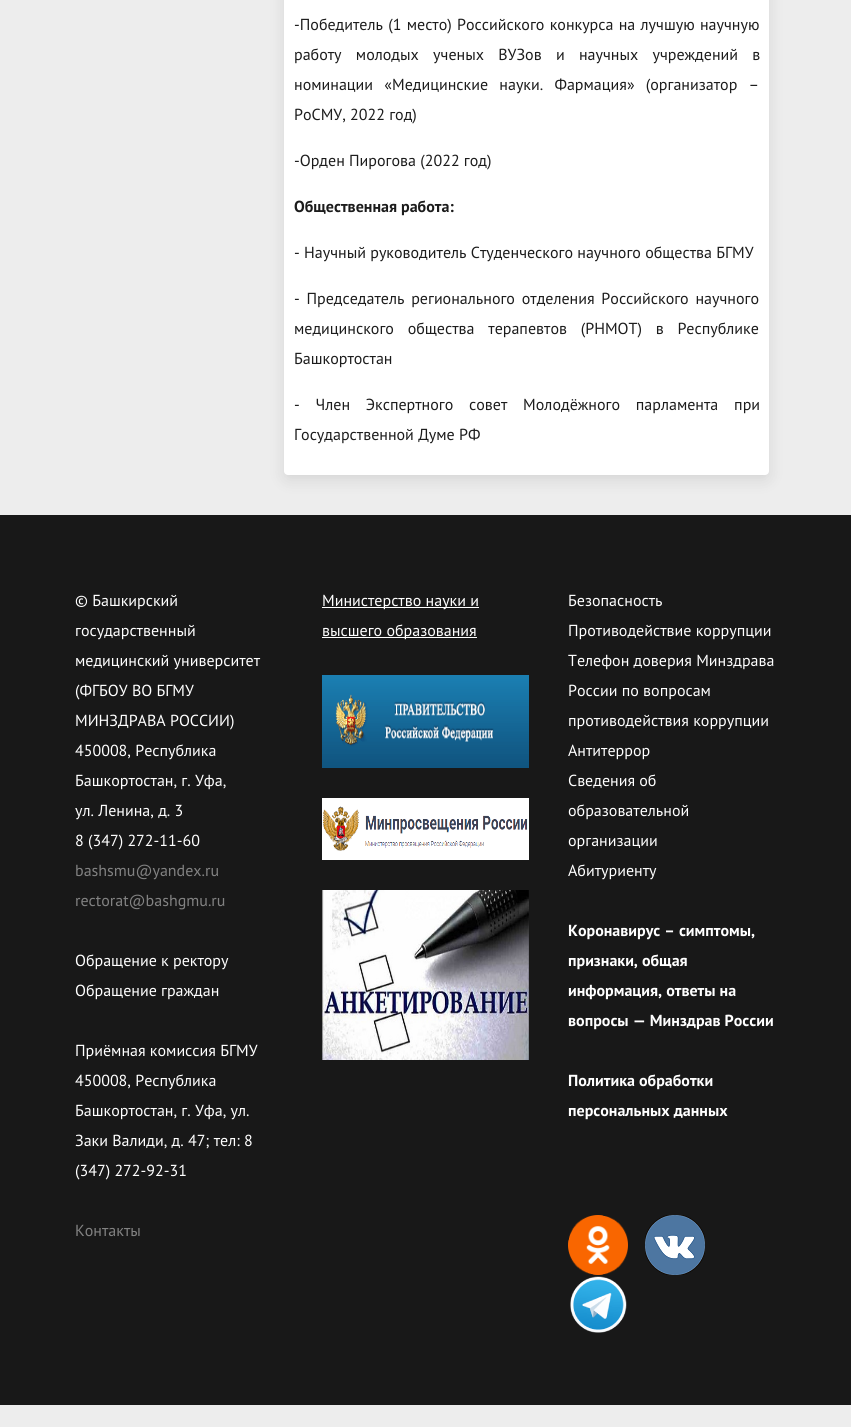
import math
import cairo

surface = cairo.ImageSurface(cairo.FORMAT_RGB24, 851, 1427)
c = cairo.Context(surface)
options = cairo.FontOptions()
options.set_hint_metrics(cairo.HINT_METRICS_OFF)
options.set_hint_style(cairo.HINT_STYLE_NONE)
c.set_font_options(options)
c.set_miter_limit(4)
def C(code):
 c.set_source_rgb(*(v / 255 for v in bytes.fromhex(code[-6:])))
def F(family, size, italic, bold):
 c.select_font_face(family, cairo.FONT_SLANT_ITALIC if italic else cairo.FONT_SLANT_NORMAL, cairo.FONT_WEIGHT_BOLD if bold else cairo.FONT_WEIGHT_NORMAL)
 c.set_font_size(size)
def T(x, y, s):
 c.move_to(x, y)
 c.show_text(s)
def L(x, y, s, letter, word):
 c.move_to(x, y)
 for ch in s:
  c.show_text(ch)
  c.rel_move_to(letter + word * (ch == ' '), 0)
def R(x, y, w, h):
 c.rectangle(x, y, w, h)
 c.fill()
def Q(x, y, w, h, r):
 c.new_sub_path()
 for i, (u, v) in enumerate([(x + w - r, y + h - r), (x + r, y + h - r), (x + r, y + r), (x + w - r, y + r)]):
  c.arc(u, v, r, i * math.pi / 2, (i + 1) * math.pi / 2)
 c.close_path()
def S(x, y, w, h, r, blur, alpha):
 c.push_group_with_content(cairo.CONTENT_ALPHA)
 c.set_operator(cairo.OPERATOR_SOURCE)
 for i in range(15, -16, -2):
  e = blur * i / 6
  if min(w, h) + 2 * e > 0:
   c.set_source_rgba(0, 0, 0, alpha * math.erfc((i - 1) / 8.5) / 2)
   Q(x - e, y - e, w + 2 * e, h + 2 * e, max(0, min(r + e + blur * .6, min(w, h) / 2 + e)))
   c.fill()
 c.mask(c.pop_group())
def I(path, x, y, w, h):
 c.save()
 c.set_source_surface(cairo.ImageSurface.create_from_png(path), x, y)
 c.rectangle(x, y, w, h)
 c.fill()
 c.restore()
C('ededed')
c.paint()
C('000000')
S(284,-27,485,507,4,7.5,.1)
C('ffffff')
Q(284,-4,485,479,4)
c.fill()
F('PT Sans',16,0,0)
C('1c1c1c')
L(294,30,'-Победитель (1 место) Российского конкурса на лучшую научную',0,1)
L(294,60,'работу молодых ученых ВУЗов и научных учреждений в',0,10)
L(294,90,'номинации «Медицинские науки. Фармация» (организатор –',0,7)
T(294,120,'РоСМУ, 2022 год)')
T(294,166,'-Орден Пирогова (2022 год)')
F('PT Sans',16,0,1)
T(294,212,'Общественная работа:')
F('PT Sans',16,0,0)
T(294,258,'- Научный руководитель Студенческого научного общества БГМУ')
L(294,304,'- Председатель регионального отделения Российского научного',0,2.5)
L(294,334,'медицинского общества терапевтов (РНМОТ) в Республике',0,9.5)
T(294,364,'Башкортостан')
L(294,410,'- Член Экспертного совет Молодёжного парламента при',0,11.5)
T(294,440,'Государственной Думе РФ')
C('181818')
R(0,515,851,890)
C('ffffff')
T(75,606,'© Башкирский')
T(75,636,'государственный')
T(75,666,'медицинский университет')
T(75,696,'(ФГБОУ ВО БГМУ')
T(75,726,'МИНЗДРАВА РОССИИ)')
T(75,756,'450008, Республика')
T(75,786,'Башкортостан, г. Уфа,')
T(75,816,'ул. Ленина, д. 3')
T(75,846,'8 (347) 272-11-60')
C('828282')
T(75,876,'bashsmu@yandex.ru')
T(75,906,'rectorat@bashgmu.ru')
C('ffffff')
T(75,966,'Обращение к ректору')
T(75,996,'Обращение граждан')
T(75,1056,'Приёмная комиссия БГМУ')
T(75,1086,'450008, Республика')
T(75,1116,'Башкортостан, г. Уфа, ул.')
T(75,1146,'Заки Валиди, д. 47; тел: 8')
T(75,1176,'(347) 272-92-31')
C('828282')
T(75,1236,'Контакты')
C('ffffff')
R(322,607,157,1)
T(322,606,'Министерство науки и')
R(322,637,155,1)
T(322,636,'высшего образования')
I('1.png',322,675,207,93)
I('2.png',322,798,207,62)
I('3.png',322,890,207,170)
T(568,606,'Безопасность')
T(568,636,'Противодействие коррупции')
T(568,666,'Телефон доверия Минздрава')
T(568,696,'России по вопросам')
T(568,726,'противодействия коррупции')
T(568,756,'Антитеррор')
T(568,786,'Сведения об')
T(568,816,'образовательной')
T(568,846,'организации')
T(568,876,'Абитуриенту')
F('PT Sans',16,0,1)
T(568,936,'Коронавирус – симптомы,')
T(568,966,'признаки, общая')
T(568,996,'информация, ответы на')
T(568,1026,'вопросы — Минздрав России')
T(568,1086,'Политика обработки')
T(568,1116,'персональных данных')
I('4.png',568,1215,60,60)
I('5.png',645,1215,60,60)
I('6.png',570,1276,57,57)
surface.write_to_png('o.png')
